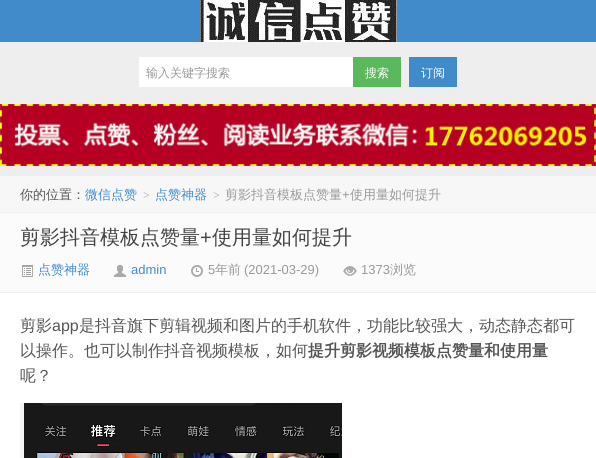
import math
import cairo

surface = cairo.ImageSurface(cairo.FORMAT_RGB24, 596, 458)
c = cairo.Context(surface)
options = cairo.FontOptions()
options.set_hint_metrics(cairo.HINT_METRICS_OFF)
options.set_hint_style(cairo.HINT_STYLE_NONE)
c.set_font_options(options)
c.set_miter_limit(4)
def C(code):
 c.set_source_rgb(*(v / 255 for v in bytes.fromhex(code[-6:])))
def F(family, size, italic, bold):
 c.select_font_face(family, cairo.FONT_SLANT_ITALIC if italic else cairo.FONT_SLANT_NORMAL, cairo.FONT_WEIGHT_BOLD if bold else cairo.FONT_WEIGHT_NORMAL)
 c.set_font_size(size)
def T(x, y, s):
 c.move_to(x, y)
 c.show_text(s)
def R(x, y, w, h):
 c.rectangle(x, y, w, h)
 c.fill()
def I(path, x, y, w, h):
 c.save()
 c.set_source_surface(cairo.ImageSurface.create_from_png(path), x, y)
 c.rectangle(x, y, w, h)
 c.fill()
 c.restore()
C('eeeeee')
c.paint()
C('428bca')
R(0,0,596,42)
I('1.png',200,0,197,42)
C('ffffff')
R(139,57,214,30)
F('WenQuanYi Zen Hei Medium',12,0,0)
C('999999')
T(146,77,'输入关键字搜索')
C('5cb85c')
R(353,57,48,30)
C('ffffff')
T(365,77,'搜索')
C('428bca')
R(409,57,48,30)
C('ffffff')
T(421,77,'订阅')
I('2.png',0,104,596,62)
C('f7f7f7')
R(0,176,596,36)
F('WenQuanYi Zen Hei Medium',13,0,0)
C('555555')
T(20,199,'你的位置：')
C('428bd1')
T(85,199,'微信点赞')
F('Liberation Serif',12,0,1)
C('bbbbbb')
T(143,199,'>')
F('WenQuanYi Zen Hei Medium',13,0,0)
C('428bd1')
T(155,199,'点赞神器')
F('Liberation Serif',12,0,1)
C('bbbbbb')
T(213,199,'>')
F('WenQuanYi Zen Hei Medium',13,0,0)
C('999999')
T(225,199,'剪影抖音模板点赞量')
F('Liberation Sans',13,0,0)
T(342,199,'+')
F('WenQuanYi Zen Hei Medium',13,0,0)
T(350,199,'使用量如何提升')
C('fbfbfb')
R(0,213,596,79)
F('WenQuanYi Zen Hei Medium',20,0,0)
C('444444')
T(20,244,'剪影抖音模板点赞量')
F('Liberation Sans',20,0,0)
T(200,244,'+')
F('WenQuanYi Zen Hei Medium',20,0,0)
T(212,244,'使用量如何提升')
I('3.png',22,265,11,12)
F('WenQuanYi Zen Hei Medium',13,0,0)
C('428bd1')
T(38,274,'点赞神器')
I('4.png',114,265,12,12)
F('Liberation Sans',13,0,0)
T(131,274,'admin')
I('5.png',191,265,12,12)
C('999999')
T(208,274,'5')
F('WenQuanYi Zen Hei Medium',13,0,0)
T(215,274,'年前')
F('Liberation Sans',13,0,0)
T(244,274,'(2021-03-29)')
I('6.png',343,266,14,10)
T(361,274,'1373')
F('WenQuanYi Zen Hei Medium',13,0,0)
T(390,274,'浏览')
C('ffffff')
R(0,293,596,165)
F('WenQuanYi Zen Hei Medium',16,0,0)
C('555555')
T(20,331,'剪影')
F('Liberation Sans',16,0,0)
T(52,331,'app')
F('WenQuanYi Zen Hei Medium',16,0,0)
T(79,331,'是抖音旗下剪辑视频和图片的手机软件，功能比较强大，动态静态都可')
T(20,356,'以操作。也可以制作抖音视频模板，如何')
F('WenQuanYi Zen Hei',16,0,1)
T(308,356,'提升剪影视频模板点赞量和使用量')
F('WenQuanYi Zen Hei Medium',16,0,0)
T(20,381,'呢？')
I('7.png',20,403,322,55)
surface.write_to_png('o.png')
